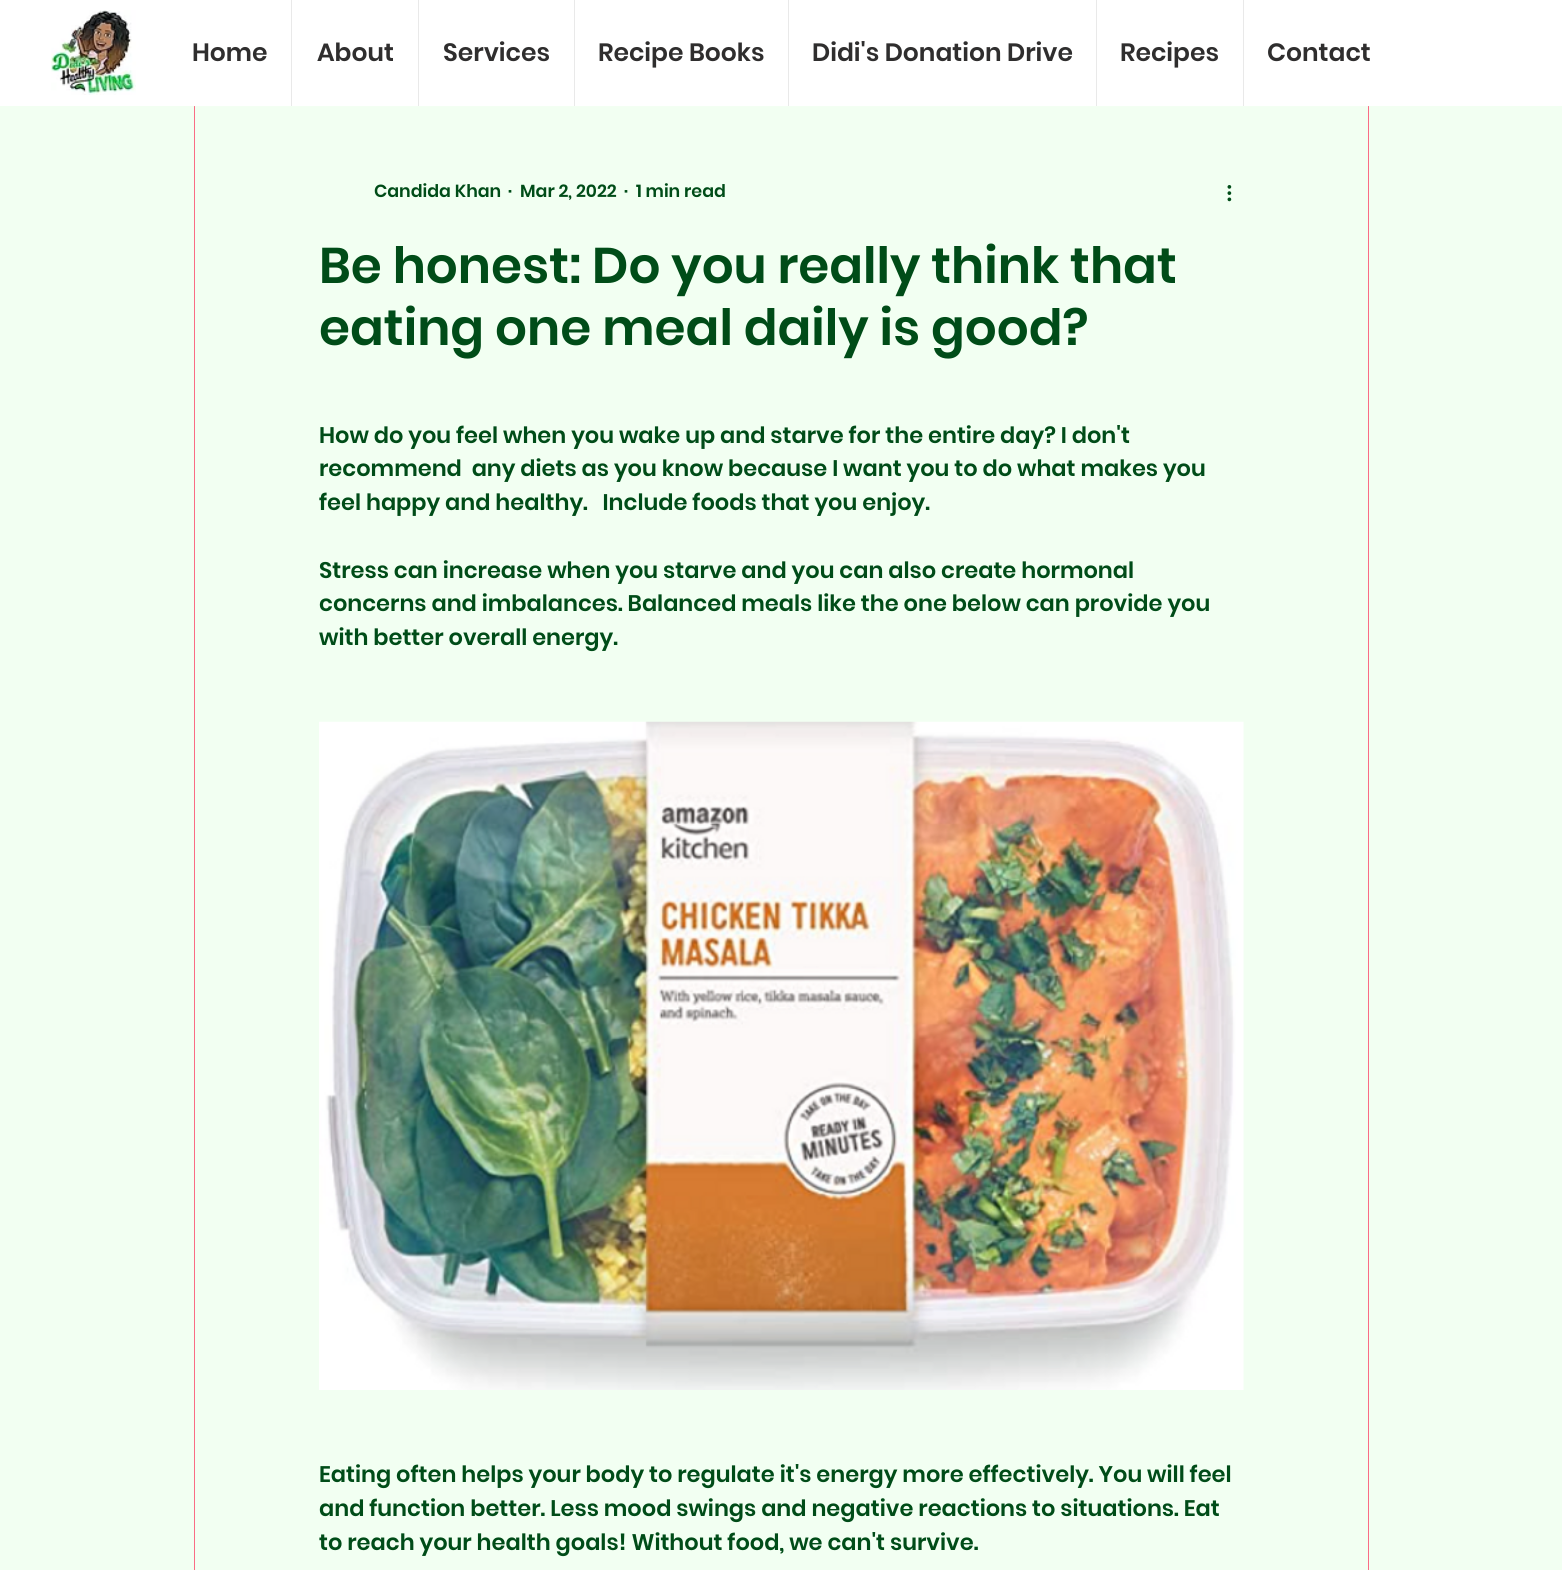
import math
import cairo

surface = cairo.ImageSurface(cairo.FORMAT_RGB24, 1562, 1570)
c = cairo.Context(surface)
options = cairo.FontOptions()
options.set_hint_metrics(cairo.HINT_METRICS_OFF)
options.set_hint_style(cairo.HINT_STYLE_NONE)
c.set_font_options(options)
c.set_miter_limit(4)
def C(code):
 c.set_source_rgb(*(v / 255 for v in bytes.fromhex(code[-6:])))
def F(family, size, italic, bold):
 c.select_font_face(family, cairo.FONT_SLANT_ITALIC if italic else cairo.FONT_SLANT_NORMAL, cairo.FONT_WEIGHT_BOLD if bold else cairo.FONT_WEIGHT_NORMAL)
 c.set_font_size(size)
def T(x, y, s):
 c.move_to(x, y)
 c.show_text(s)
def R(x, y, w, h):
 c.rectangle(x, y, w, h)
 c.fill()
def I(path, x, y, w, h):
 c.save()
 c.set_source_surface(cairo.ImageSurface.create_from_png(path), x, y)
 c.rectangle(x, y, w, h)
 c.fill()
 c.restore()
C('f2fff2')
c.paint()
c.rectangle(194.5,95.5,1174,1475)
C('fa6c85')
c.set_line_width(1)
c.stroke()
C('ffffff')
R(0,0,1562,106)
c.set_source_rgba(1,1,1,0.07)
R(194,106,1175,1)
I('1.png',51,10,85,85)
F('Poppins SemiBold',25,0,0)
C('2f2e2e')
T(192,61,'Home')
C('e9e9e9')
R(291,0,1,106)
C('2f2e2e')
T(317,61,'About')
C('e9e9e9')
R(418,0,1,106)
C('2f2e2e')
T(443,61,'Services')
C('e9e9e9')
R(574,0,1,106)
C('2f2e2e')
T(598,61,'Recipe Books')
C('e9e9e9')
R(788,0,1,106)
C('2f2e2e')
T(812,61,'Didi\'s Donation Drive')
C('e9e9e9')
R(1096,0,1,106)
C('2f2e2e')
T(1120,61,'Recipes')
C('e9e9e9')
R(1243,0,1,106)
C('2f2e2e')
T(1267,61,'Contact')
F('Poppins SemiBold',17.5,0,0)
C('004c18')
T(374,197,'Candida Khan')
T(508,197,'·')
T(520,197,'Mar 2, 2022')
T(624,197,'·')
T(636,197,'1 min read')
I('2.png',1227,185,5,17)
F('Poppins SemiBold',50,0,0)
T(319,283,'Be honest: Do you really think that')
T(319,345,'eating one meal daily is good?')
F('Poppins SemiBold',22.5,0,0)
T(319,443,'How do you feel when you wake up and starve for the entire day? I don\'t')
T(319,476,'recommend  any diets as you know because I want you to do what makes you')
T(319,510,'feel happy and healthy.   Include foods that you enjoy.')
T(319,578,'Stress can increase when you starve and you can also create hormonal')
T(319,611,'concerns and imbalances. Balanced meals like the one below can provide you')
T(319,645,'with better overall energy.')
I('3.png',319,721,925,669)
T(319,1482,'Eating often helps your body to regulate it\'s energy more effectively. You will feel')
T(319,1516,'and function better. Less mood swings and negative reactions to situations. Eat')
T(319,1550,'to reach your health goals! Without food, we can\'t survive.')
surface.write_to_png('o.png')
